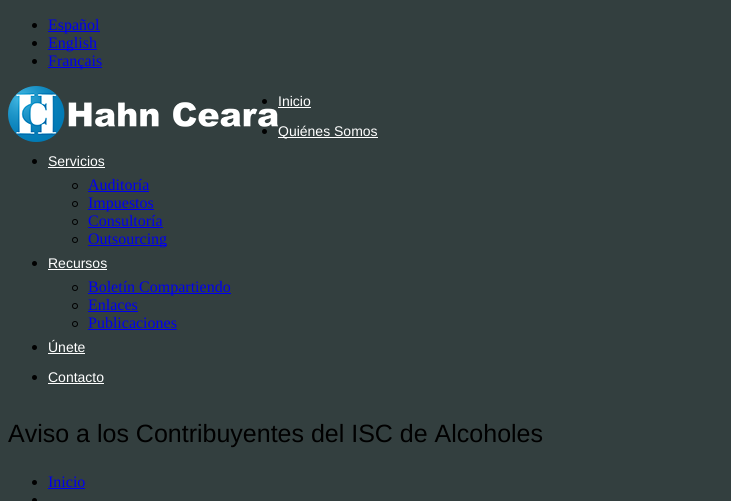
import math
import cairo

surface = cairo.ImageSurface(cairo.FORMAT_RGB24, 731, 501)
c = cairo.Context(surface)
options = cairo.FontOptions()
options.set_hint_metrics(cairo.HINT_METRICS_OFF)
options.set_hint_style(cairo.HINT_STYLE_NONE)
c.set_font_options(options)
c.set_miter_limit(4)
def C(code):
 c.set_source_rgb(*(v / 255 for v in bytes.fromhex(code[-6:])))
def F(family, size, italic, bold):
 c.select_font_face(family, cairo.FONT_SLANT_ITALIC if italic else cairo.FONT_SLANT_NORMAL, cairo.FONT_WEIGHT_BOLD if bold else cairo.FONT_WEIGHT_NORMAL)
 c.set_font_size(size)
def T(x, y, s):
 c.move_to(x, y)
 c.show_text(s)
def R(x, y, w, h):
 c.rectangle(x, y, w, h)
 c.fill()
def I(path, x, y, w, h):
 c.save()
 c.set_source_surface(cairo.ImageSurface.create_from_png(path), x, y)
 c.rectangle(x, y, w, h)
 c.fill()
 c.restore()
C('333f3f')
c.paint()
C('000000')
c.arc(34.5,25.5,2.5,0,2 * math.pi)
c.fill()
C('0000ee')
R(48,31,52,1)
F('Liberation Serif',16,0,0)
T(48,30,'Español')
C('000000')
c.new_path()
c.arc(34.5,43.5,2.5,0,2 * math.pi)
c.fill()
C('0000ee')
R(48,49,49,1)
T(48,48,'English')
C('000000')
c.new_path()
c.arc(34.5,61.5,2.5,0,2 * math.pi)
c.fill()
C('0000ee')
R(48,67,54,1)
T(48,66,'Français')
I('1.png',8,86,270,56)
C('000000')
c.arc(264.5,101.5,2.5,0,2 * math.pi)
c.fill()
F('Liberation Sans',14,0,0)
C('ffffff')
T(278,106,'Inicio')
R(278,107,33,1)
C('000000')
c.new_path()
c.arc(264.5,131.5,2.5,0,2 * math.pi)
c.fill()
C('ffffff')
R(278,137,100,1)
T(278,136,'Quiénes Somos')
C('000000')
c.new_path()
c.arc(34.5,161.5,2.5,0,2 * math.pi)
c.fill()
C('ffffff')
T(48,166,'Servicios')
R(48,167,57,1)
c.new_path()
c.arc(75,186,2.5,0,2 * math.pi)
C('000000')
c.set_line_width(1)
c.stroke()
F('Liberation Serif',16,0,0)
C('0000ee')
T(88,190,'Auditoría')
R(88,191,61,1)
c.new_path()
c.arc(75,204,2.5,0,2 * math.pi)
C('000000')
c.stroke()
C('0000ee')
R(88,209,66,1)
T(88,208,'Impuestos')
c.new_path()
c.arc(75,222,2.5,0,2 * math.pi)
C('000000')
c.stroke()
C('0000ee')
T(88,226,'Consultoría')
R(88,227,75,1)
c.new_path()
c.arc(75,240,2.5,0,2 * math.pi)
C('000000')
c.stroke()
C('0000ee')
R(88,245,79,1)
T(88,244,'Outsourcing')
C('000000')
c.new_path()
c.arc(34.5,263.5,2.5,0,2 * math.pi)
c.fill()
F('Liberation Sans',14,0,0)
C('ffffff')
T(48,268,'Recursos')
R(48,269,59,1)
c.new_path()
c.arc(75,288,2.5,0,2 * math.pi)
C('000000')
c.stroke()
C('0000ee')
R(88,293,143,1)
F('Liberation Serif',16,0,0)
T(88,292,'Boletín Compartiendo')
c.new_path()
c.arc(75,306,2.5,0,2 * math.pi)
C('000000')
c.stroke()
C('0000ee')
T(88,310,'Enlaces')
R(88,311,50,1)
c.new_path()
c.arc(75,324,2.5,0,2 * math.pi)
C('000000')
c.stroke()
C('0000ee')
T(88,328,'Publicaciones')
R(88,329,89,1)
C('000000')
c.new_path()
c.arc(34.5,347.5,2.5,0,2 * math.pi)
c.fill()
F('Liberation Sans',14,0,0)
C('ffffff')
T(48,352,'Únete')
R(48,353,37,1)
C('000000')
c.new_path()
c.arc(34.5,377.5,2.5,0,2 * math.pi)
c.fill()
C('ffffff')
T(48,382,'Contacto')
R(48,383,56,1)
F('Liberation Sans',25,0,0)
C('000000')
T(8,442,'Aviso a los Contribuyentes del ISC de Alcoholes')
c.new_path()
c.arc(34.5,482.5,2.5,0,2 * math.pi)
c.fill()
F('Liberation Serif',16,0,0)
C('0000ee')
T(48,487,'Inicio')
R(48,488,37,1)
C('000000')
c.new_path()
c.arc(34.5,500.5,2.5,0,2 * math.pi)
c.fill()
surface.write_to_png('o.png')
